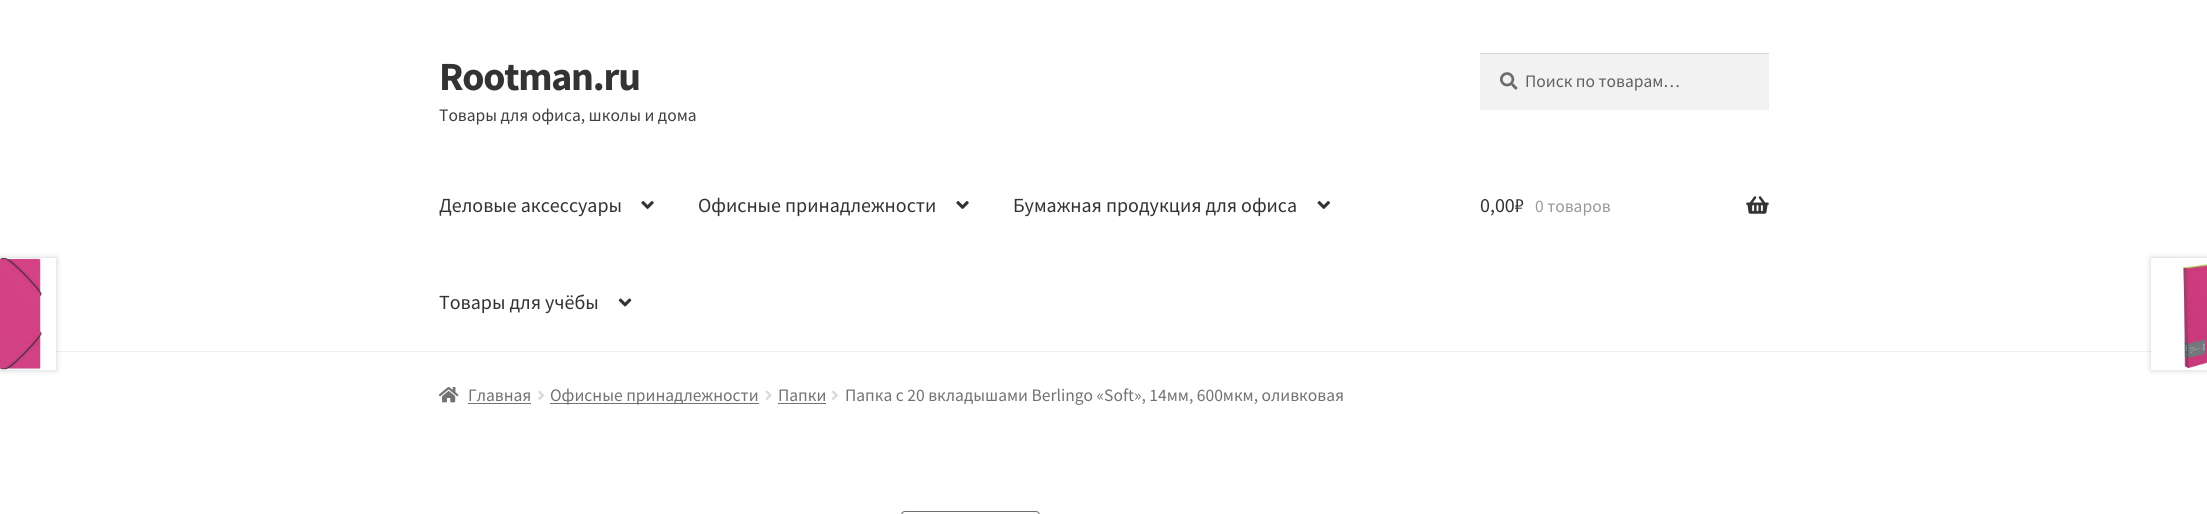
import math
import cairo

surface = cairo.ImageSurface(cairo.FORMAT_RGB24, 2207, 514)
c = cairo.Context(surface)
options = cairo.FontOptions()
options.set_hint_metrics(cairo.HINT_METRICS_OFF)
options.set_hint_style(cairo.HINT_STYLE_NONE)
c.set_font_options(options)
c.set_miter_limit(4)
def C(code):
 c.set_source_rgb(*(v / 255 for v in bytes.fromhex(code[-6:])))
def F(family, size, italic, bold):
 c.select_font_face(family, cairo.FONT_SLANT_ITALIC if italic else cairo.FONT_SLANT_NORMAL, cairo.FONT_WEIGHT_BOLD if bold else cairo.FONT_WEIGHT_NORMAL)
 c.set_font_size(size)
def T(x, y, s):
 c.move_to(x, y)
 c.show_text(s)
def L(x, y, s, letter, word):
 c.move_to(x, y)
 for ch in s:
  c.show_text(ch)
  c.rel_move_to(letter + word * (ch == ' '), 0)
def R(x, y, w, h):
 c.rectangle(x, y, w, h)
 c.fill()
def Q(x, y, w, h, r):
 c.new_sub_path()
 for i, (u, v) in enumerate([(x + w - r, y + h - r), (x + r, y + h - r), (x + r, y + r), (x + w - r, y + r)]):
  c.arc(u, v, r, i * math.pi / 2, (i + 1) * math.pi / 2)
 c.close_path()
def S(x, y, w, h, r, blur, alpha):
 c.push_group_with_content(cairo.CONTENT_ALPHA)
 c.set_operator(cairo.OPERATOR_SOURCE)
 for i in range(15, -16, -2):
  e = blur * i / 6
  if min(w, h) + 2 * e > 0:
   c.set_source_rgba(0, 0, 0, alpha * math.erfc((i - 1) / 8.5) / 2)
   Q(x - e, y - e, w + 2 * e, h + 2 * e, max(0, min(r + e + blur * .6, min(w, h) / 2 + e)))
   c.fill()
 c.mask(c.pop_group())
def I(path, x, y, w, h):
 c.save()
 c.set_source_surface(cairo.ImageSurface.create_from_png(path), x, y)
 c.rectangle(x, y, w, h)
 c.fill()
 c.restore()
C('ffffff')
c.paint()
C('f0f0f0')
R(56,351,2095,1)
F('Source Sans Pro',40,0,1)
C('333333')
L(439,90,'Rootman.ru',-1.25,0)
F('Source Sans Pro',17.5,0,0)
C('404040')
T(439,121,'Товары для офиса, школы и дома')
C('f2f2f2')
R(1480,54,289,56)
I('1.png',1500,72,18,18)
C('d4d4d4')
R(1480,53,289,1)
C('616161')
T(1525,87,'Поиск по товарам…')
F('Source Sans Pro',20,0,0)
C('333333')
T(439,212,'Деловые аксессуары')
I('2.png',641,201,13,8)
T(698,212,'Офисные принадлежности')
I('2.png',956,201,13,8)
T(1013,212,'Бумажная продукция для офиса')
I('3.png',1317,201,13,8)
T(439,309,'Товары для учёбы')
I('4.png',618,298,14,9)
T(1480,212,'0,00₽')
F('Source Sans Pro',17.5,0,0)
C('999999')
T(1535,212,'0 товаров')
I('5.png',1746,196,23,18)
C('000000')
S(-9,258,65,112,0,3,.2)
C('ffffff')
R(44,258,12,112)
I('6.png',0,258,44,112)
C('000000')
S(2151,258,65,112,0,3,.2)
C('ffffff')
R(2151,258,56,112)
I('7.png',2179,263,28,106)
Q(901.5,511.5,138,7,3.5)
C('6d6d6d')
c.set_line_width(1)
c.stroke()
I('8.png',438,387,21,16)
C('727272')
T(468,401,'Главная')
R(468,403,63,1)
I('9.png',538,390,7,10)
R(550,403,209,1)
T(550,401,'Офисные принадлежности')
I('10.png',765,390,7,10)
T(778,401,'Папки')
R(778,403,48,1)
I('11.png',832,390,6,10)
T(845,401,'Папка с 20 вкладышами Berlingo «Soft», 14мм, 600мкм, оливковая')
surface.write_to_png('o.png')
